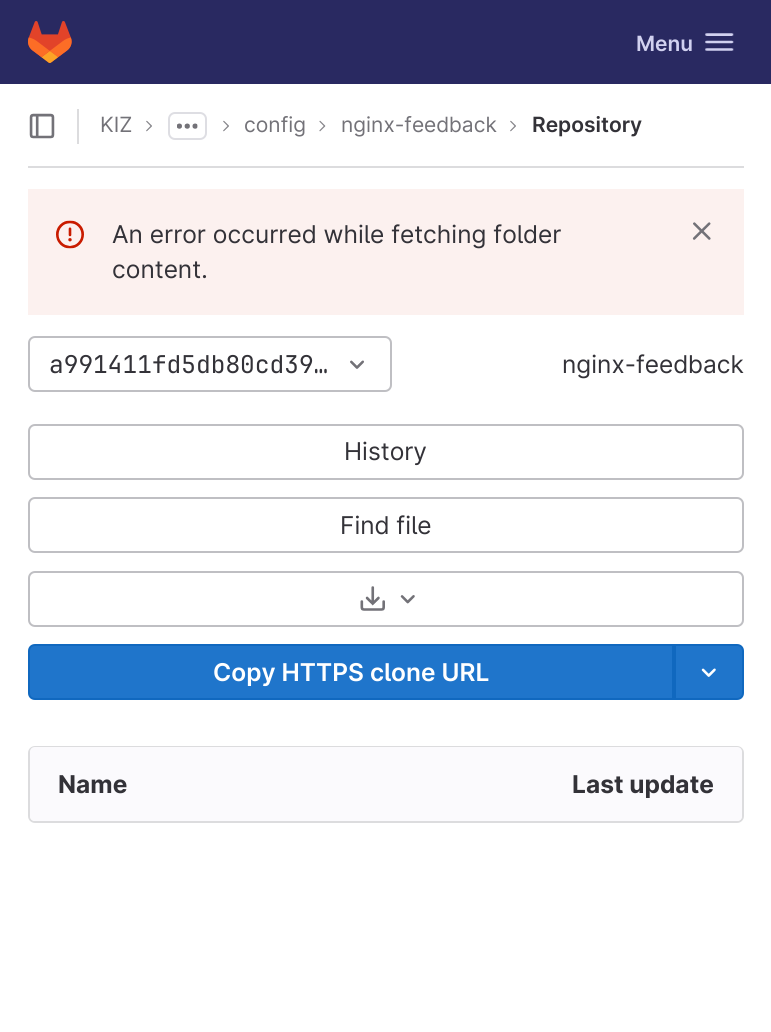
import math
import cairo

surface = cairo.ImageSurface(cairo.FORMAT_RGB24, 771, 1032)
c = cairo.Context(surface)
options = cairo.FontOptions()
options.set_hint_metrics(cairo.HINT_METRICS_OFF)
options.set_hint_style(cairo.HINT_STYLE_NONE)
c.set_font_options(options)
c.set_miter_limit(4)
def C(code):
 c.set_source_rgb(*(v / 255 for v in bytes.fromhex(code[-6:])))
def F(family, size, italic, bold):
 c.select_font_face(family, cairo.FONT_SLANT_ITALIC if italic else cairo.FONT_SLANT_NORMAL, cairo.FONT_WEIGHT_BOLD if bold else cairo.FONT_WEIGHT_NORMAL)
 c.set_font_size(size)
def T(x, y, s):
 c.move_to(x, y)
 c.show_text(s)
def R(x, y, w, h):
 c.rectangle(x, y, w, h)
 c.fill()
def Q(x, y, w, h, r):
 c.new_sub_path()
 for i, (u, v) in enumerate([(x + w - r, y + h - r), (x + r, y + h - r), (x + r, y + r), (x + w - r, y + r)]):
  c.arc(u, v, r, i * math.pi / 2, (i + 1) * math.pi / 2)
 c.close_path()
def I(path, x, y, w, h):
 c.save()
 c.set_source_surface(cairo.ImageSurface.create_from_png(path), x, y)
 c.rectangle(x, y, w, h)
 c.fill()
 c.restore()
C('ffffff')
c.paint()
C('292961')
R(0,0,771,84)
I('1.png',28,21,44,42)
F('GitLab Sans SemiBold',21,0,0)
C('d1d1f0')
T(636,51,'Menu')
I('2.png',705,33,29,18)
C('dcdcde')
R(28,166,716,2)
I('3.png',29,113,26,26)
R(77,109,2,35)
F('GitLab Sans',21,0,0)
C('737278')
T(100,132,'KIZ')
I('4.png',146,120,6,12)
Q(169,113,37,26,6)
C('dedee3')
c.stroke()
I('5.png',177,123,21,6)
I('4.png',223,120,6,12)
C('737278')
T(244,132,'config')
I('6.png',319,120,7,12)
T(341,132,'nginx-feedback')
I('4.png',510,120,6,12)
F('GitLab Sans SemiBold',21,0,0)
C('333238')
T(532,132,'Repository')
C('fcf1ef')
R(28,189,716,126)
I('7.png',56,220,28,29)
F('GitLab Sans',24.5,0,0)
C('333238')
T(112,243,'An error occurred while fetching folder')
T(112,278,'content.')
I('8.png',692,222,19,18)
Q(29,337,362,54,6)
C('bfbfc3')
c.stroke()
F('JetBrains Mono',24.5,0,0)
C('333238')
T(49,373,'a991411fd5db80cd39…')
I('9.png',350,360,14,9)
F('GitLab Sans',24.5,0,0)
T(562,373,'nginx-feedback')
Q(29,425,714,54,6)
C('bfbfc3')
c.stroke()
C('333238')
T(344,460,'History')
Q(29,498,714,54,6)
C('bfbfc3')
c.stroke()
C('333238')
T(340,534,'Find file')
Q(29,572,714,54,6)
C('bfbfc3')
c.stroke()
I('10.png',360,586,25,25)
I('11.png',400,595,15,9)
C('1f75cb')
c.new_path()
c.move_to(35,645)
c.line_to(673,645)
c.line_to(673,699)
c.line_to(35,699)
c.curve_to(31.5,699,29,696.5,29,693)
c.line_to(29,651)
c.curve_to(29,647.5,31.5,645,35,645)
c.close_path()
c.fill_preserve()
C('1068bf')
c.stroke()
F('GitLab Sans SemiBold',24.5,0,0)
C('ffffff')
T(213,681,'Copy HTTPS clone URL')
C('1f75cb')
c.new_path()
c.move_to(675,645)
c.line_to(737,645)
c.curve_to(740.5,645,743,647.5,743,651)
c.line_to(743,693)
c.curve_to(743,696.5,740.5,699,737,699)
c.line_to(675,699)
c.close_path()
c.fill_preserve()
C('1068bf')
c.stroke()
I('12.png',701,668,15,9)
Q(29,747,714,75,6)
C('dcdcde')
c.stroke()
C('fbfafd')
c.new_path()
c.move_to(35,747)
c.line_to(387,747)
c.line_to(387,821)
c.line_to(35,821)
c.curve_to(32,821,30,819,30,816)
c.line_to(30,752)
c.curve_to(30,749,32,747,35,747)
c.close_path()
c.fill()
F('GitLab Sans',24.5,0,1)
C('333238')
T(58,793,'Name')
C('fbfafd')
c.new_path()
c.move_to(387,747)
c.line_to(737,747)
c.curve_to(740,747,742,749,742,752)
c.line_to(742,816)
c.curve_to(742,819,740,821,737,821)
c.line_to(387,821)
c.close_path()
c.fill()
C('333238')
T(572,793,'Last update')
surface.write_to_png('o.png')
